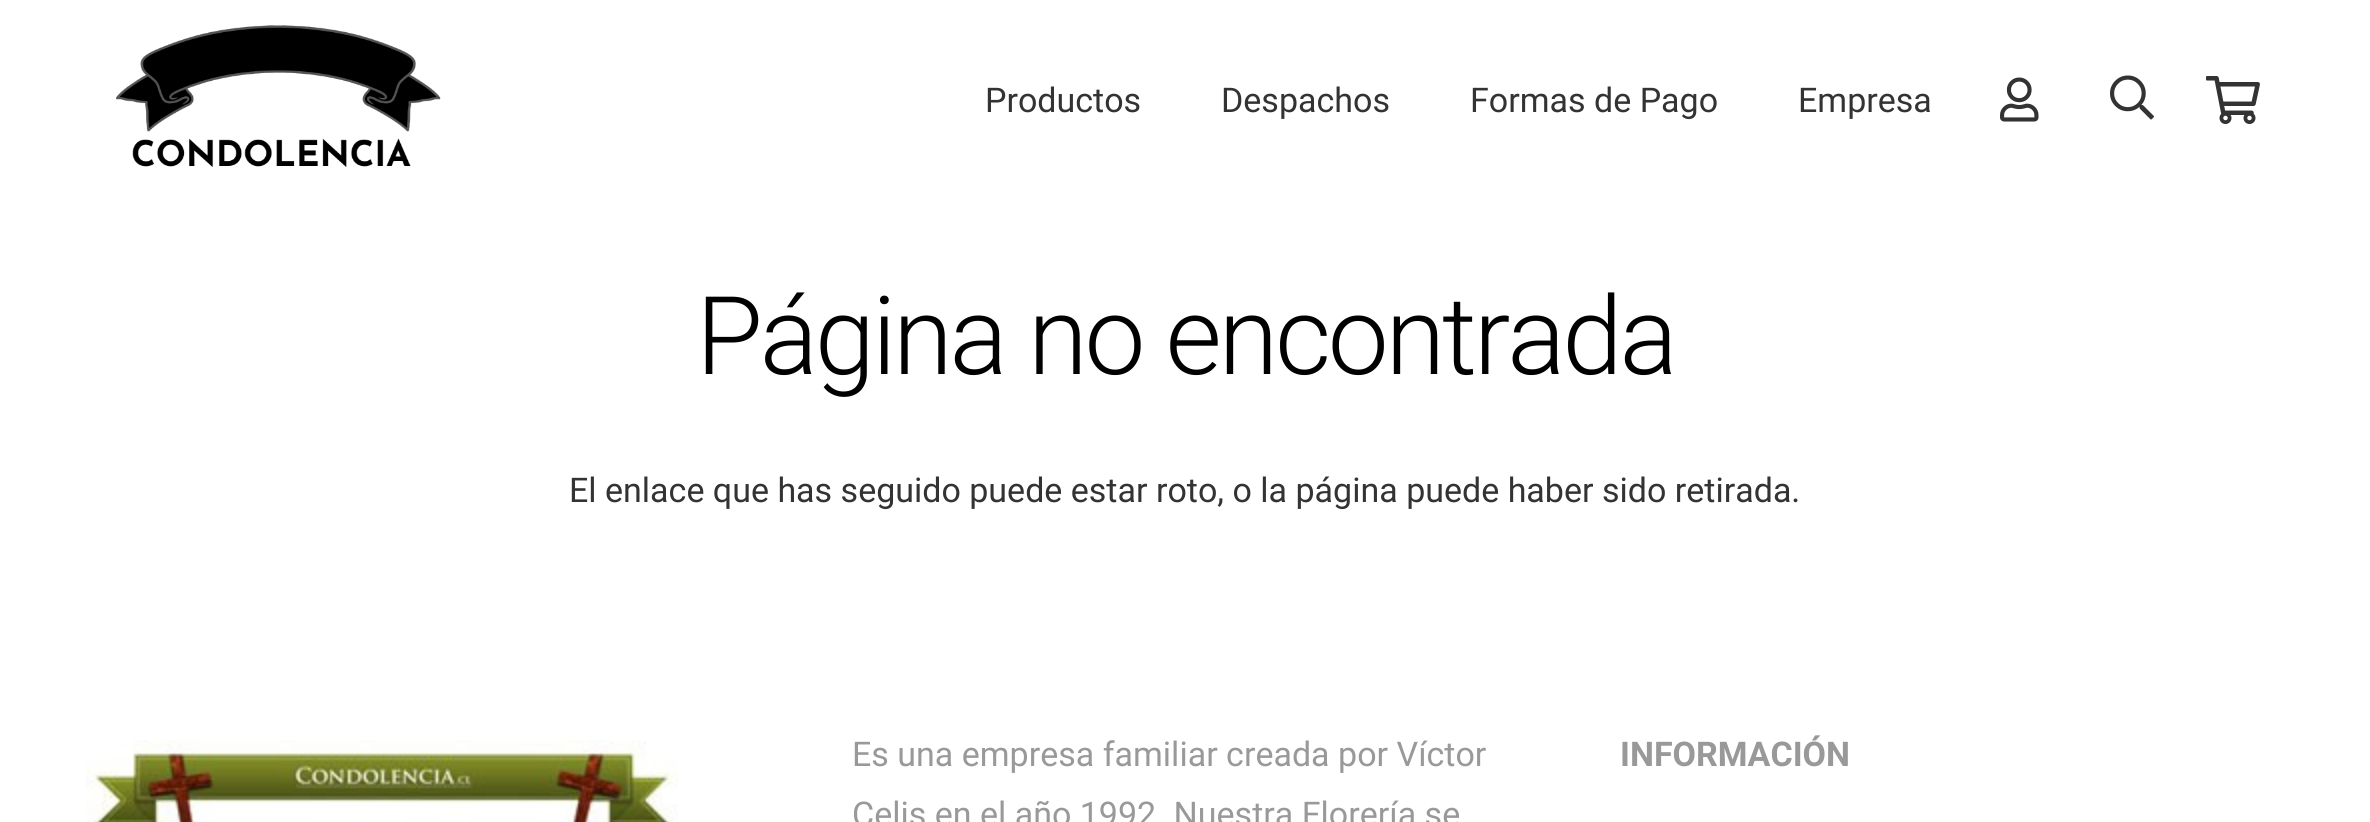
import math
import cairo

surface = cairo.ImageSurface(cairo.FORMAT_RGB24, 2370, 822)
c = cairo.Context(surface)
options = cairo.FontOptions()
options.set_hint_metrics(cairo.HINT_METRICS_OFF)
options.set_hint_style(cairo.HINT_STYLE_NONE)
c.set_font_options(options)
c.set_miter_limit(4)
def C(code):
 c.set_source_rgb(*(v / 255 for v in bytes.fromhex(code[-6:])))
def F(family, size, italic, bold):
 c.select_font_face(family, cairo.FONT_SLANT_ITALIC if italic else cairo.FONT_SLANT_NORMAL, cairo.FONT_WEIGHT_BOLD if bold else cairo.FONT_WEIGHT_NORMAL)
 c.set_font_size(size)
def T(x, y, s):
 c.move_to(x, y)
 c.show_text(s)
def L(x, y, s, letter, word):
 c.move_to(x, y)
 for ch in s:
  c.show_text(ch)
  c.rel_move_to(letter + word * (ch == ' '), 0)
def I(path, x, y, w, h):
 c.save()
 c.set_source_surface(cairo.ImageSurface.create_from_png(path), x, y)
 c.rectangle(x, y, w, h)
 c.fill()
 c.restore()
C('ffffff')
c.paint()
I('1.png',116,25,325,142)
F('Roboto',34,0,0)
C('333333')
T(985,112,'Productos')
T(1221,112,'Despachos')
T(1470,112,'Formas de Pago')
T(1798,112,'Empresa')
I('2.png',2000,77,39,45)
I('3.png',2110,75,44,45)
I('4.png',2206,76,54,48)
F('Roboto Light',108.75,0,0)
C('000000')
L(696,374,'Página no encontrada',-3.25,0)
F('Roboto',34,0,0)
C('333333')
T(569,502,'El enlace que has seguido puede estar roto, o la página puede haber sido retirada.')
I('5.png',86,740,592,82)
C('999999')
T(852,766,'Es una empresa familiar creada por Víctor')
T(852,826,'Celis en el año 1992. Nuestra Florería se')
F('Roboto',34,0,1)
T(1620,766,'INFORMACIÓN')
surface.write_to_png('o.png')
